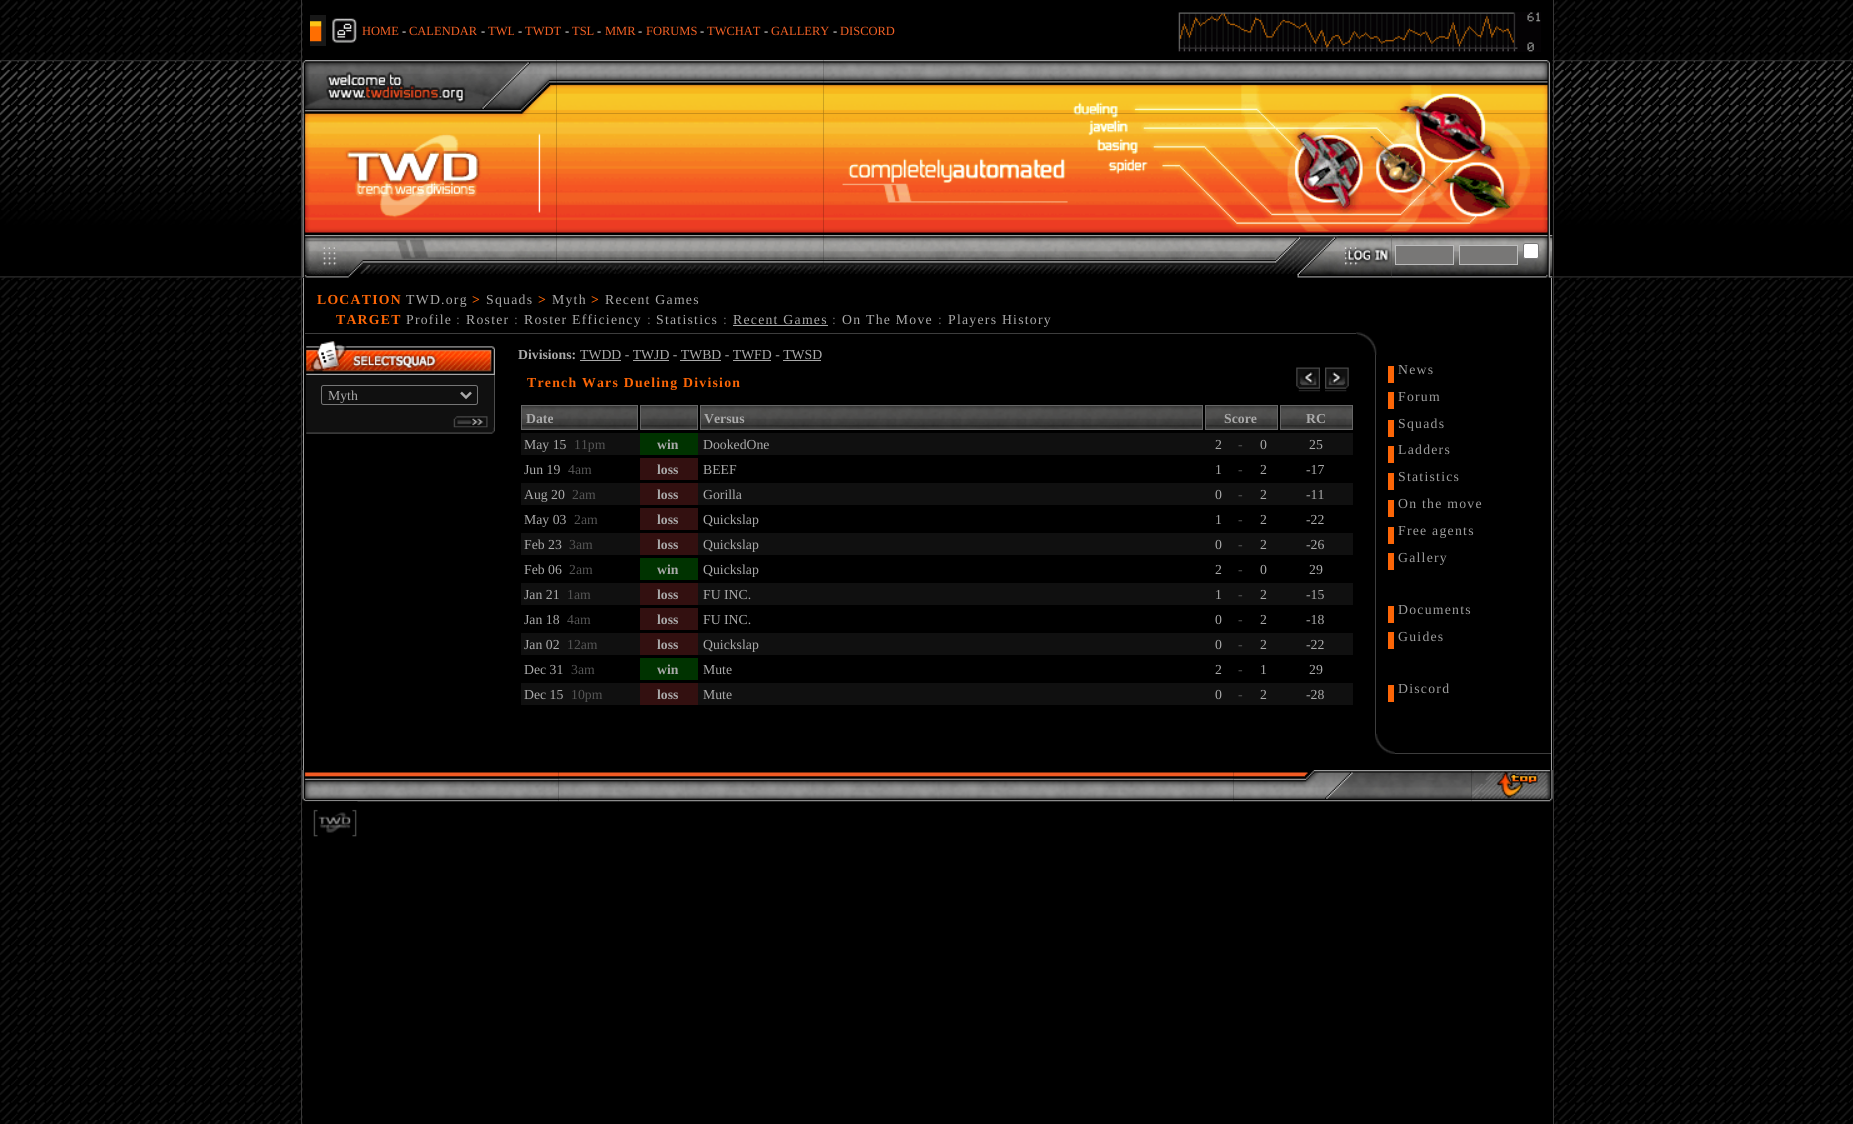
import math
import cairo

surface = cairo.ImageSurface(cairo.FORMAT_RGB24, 1853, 1124)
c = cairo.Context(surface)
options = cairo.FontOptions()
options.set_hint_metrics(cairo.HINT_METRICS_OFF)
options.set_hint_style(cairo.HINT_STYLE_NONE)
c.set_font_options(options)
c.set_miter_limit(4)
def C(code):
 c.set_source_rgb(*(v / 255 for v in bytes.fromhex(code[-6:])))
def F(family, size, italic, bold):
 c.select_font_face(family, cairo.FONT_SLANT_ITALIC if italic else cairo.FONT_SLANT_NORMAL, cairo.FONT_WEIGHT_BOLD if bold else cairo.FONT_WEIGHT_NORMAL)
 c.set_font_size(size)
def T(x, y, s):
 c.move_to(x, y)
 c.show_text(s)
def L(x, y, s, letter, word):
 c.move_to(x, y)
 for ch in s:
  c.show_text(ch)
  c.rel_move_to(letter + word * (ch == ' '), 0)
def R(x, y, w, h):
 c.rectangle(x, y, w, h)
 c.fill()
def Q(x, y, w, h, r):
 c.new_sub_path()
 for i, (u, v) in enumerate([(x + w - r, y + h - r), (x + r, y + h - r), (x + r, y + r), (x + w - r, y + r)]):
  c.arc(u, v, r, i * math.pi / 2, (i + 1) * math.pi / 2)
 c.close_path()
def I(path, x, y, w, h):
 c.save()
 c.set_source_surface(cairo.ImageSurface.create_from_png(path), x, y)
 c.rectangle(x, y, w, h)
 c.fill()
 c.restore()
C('ffffff')
c.paint()
I('1.png',0,0,1853,1124)
C('383737')
R(301,0,1,60)
I('2.png',0,60,303,218)
R(301,60,1,1064)
C('000000')
R(303,0,1250,1124)
C('181818')
R(310,15,16,31)
I('3.png',310,21,12,21)
I('4.png',332,18,25,25)
F('Liberation Serif',12.5,0,0)
C('f36125')
T(362,35,'HOME')
C('ffffff')
T(402,35,'-')
C('f36125')
T(409,35,'CALENDAR')
C('ffffff')
T(481,35,'-')
C('f36125')
T(488,35,'TWL')
C('ffffff')
T(518,35,'-')
C('f36125')
T(525,35,'TWDT')
C('ffffff')
T(565,35,'-')
C('f36125')
T(572,35,'TSL')
C('ffffff')
T(597,35,'-')
C('f36125')
T(605,35,'MMR')
C('ffffff')
T(638,35,'-')
C('f36125')
T(646,35,'FORUMS')
C('ffffff')
T(700,35,'-')
C('f36125')
T(707,35,'TWCHAT')
C('ffffff')
T(764,35,'-')
C('f36125')
T(771,35,'GALLERY')
C('ffffff')
T(833,35,'-')
C('f36125')
T(840,35,'DISCORD')
I('5.png',1178,12,363,40)
I('7.png',556,60,268,54)
I('10.png',556,113,268,120)
I('6.png',302,60,255,54)
I('8.png',823,60,727,54)
I('9.png',302,113,255,122)
I('11.png',823,113,727,122)
I('13.png',556,235,268,39)
I('12.png',302,235,255,43)
I('14.png',823,235,477,43)
I('16.png',1391,235,162,43)
I('15.png',1300,235,92,43)
C('787776')
c.rectangle(1395.5,245.5,58,19)
c.fill_preserve()
C('bdbdbd')
c.set_line_width(1)
c.stroke()
C('787776')
c.rectangle(1459.5,245.5,58,19)
c.fill_preserve()
C('bdbdbd')
c.stroke()
C('ffffff')
Q(1523.5,243.5,15,15,2)
c.fill_preserve()
C('767676')
c.stroke()
C('9d9d9d')
R(1551,278,1,492)
R(303,278,1,492)
F('Liberation Serif',13.75,0,1)
C('fd6606')
L(317,304,'LOCATION',1.25,0)
F('Liberation Serif',13.75,0,0)
C('aaaaaa')
L(406,304,'TWD.org',1.25,0)
F('Liberation Serif',13.75,0,1)
C('fd6606')
L(472,304,'>',1.25,0)
F('Liberation Serif',13.75,0,0)
C('aaaaaa')
L(486,304,'Squads',1.25,0)
F('Liberation Serif',13.75,0,1)
C('fd6606')
L(538,304,'>',1.25,0)
F('Liberation Serif',13.75,0,0)
C('aaaaaa')
L(552,304,'Myth',1.25,0)
F('Liberation Serif',13.75,0,1)
C('fd6606')
L(591,304,'>',1.25,0)
F('Liberation Serif',13.75,0,0)
C('aaaaaa')
L(605,304,'Recent Games',1.25,0)
F('Liberation Serif',13.75,0,1)
C('fd6606')
L(336,324,'TARGET',1.25,0)
F('Liberation Serif',13.75,0,0)
C('aaaaaa')
L(406,324,'Profile',1.25,0)
C('6d6d6d')
L(456,324,':',1.25,0)
C('aaaaaa')
L(466,324,'Roster',1.25,0)
C('6d6d6d')
L(514,324,':',1.25,0)
C('aaaaaa')
L(524,324,'Roster Efficiency',1.25,0)
C('6d6d6d')
L(647,324,':',1.25,0)
C('aaaaaa')
L(656,324,'Statistics',1.25,0)
C('6d6d6d')
L(723,324,':',1.25,0)
C('aaaaaa')
L(733,324,'Recent Games',1.25,0)
R(733,325,95,1)
C('6d6d6d')
L(832,324,':',1.25,0)
C('aaaaaa')
L(842,324,'On The Move',1.25,0)
C('6d6d6d')
L(938,324,':',1.25,0)
C('aaaaaa')
L(948,324,'Players History',1.25,0)
C('3d3d3d')
R(305,333,1051,1)
I('17.png',306,341,189,34)
C('101010')
R(306,375,188,53)
C('4c4c4c')
R(494,375,1,53)
Q(321.5,385.5,156,19,2)
C('767676')
c.stroke()
c.new_path()
c.move_to(461,392.5)
c.line_to(466,397.5)
c.line_to(471,392.5)
C('aaaaaa')
c.set_line_width(2.5)
c.stroke()
T(328,400,'Myth')
I('18.png',453,416,35,12)
I('19.png',306,427,189,7)
F('Liberation Serif',13.75,0,1)
T(518,359,'Divisions:')
F('Liberation Serif',13.75,0,0)
T(580,359,'TWDD - TWJD - TWBD - TWFD - TWSD')
R(580,360,41,1)
R(633,360,36,1)
R(680,360,41,1)
R(733,360,38,1)
R(783,360,38,1)
F('Liberation Serif',13.75,0,1)
C('fd6606')
L(527,387,'Trench Wars Dueling Division',1.25,0)
I('20.png',1296,367,24,25)
I('21.png',1325,367,24,25)
I('22.png',522,406,115,23)
c.rectangle(521.5,405.5,116,24)
C('666666')
c.set_line_width(1)
c.stroke()
C('aaaaaa')
T(526,423,'Date')
I('23.png',641,406,56,23)
c.rectangle(640.5,405.5,57,24)
C('666666')
c.stroke()
I('24.png',701,406,501,23)
c.rectangle(700.5,405.5,502,24)
c.stroke()
C('aaaaaa')
T(704,423,'Versus')
I('25.png',1206,406,71,23)
c.rectangle(1205.5,405.5,72,24)
C('666666')
c.stroke()
C('aaaaaa')
T(1224,423,'Score')
I('25.png',1281,406,71,23)
c.rectangle(1280.5,405.5,72,24)
C('666666')
c.stroke()
C('aaaaaa')
T(1306,423,'RC')
C('101010')
R(521,433,832,22)
F('Liberation Serif',13.75,0,0)
C('aaaaaa')
T(524,449,'May 15')
C('555555')
T(574,449,'11pm')
C('003300')
R(640,433,58,22)
F('Liberation Serif',13.75,0,1)
C('aaaaaa')
T(657,449,'win')
F('Liberation Serif',13.75,0,0)
T(703,449,'DookedOne')
T(1215,449,'2')
C('555555')
T(1238,449,'-')
C('aaaaaa')
T(1260,449,'0')
T(1309,449,'25')
T(524,474,'Jun 19')
C('555555')
T(568,474,'4am')
C('331010')
R(640,458,58,22)
F('Liberation Serif',13.75,0,1)
C('aaaaaa')
T(657,474,'loss')
F('Liberation Serif',13.75,0,0)
T(703,474,'BEEF')
T(1215,474,'1')
C('555555')
T(1238,474,'-')
C('aaaaaa')
T(1260,474,'2')
T(1306,474,'-17')
C('101010')
R(521,483,832,22)
C('aaaaaa')
T(524,499,'Aug 20')
C('555555')
T(572,499,'2am')
C('331010')
R(640,483,58,22)
F('Liberation Serif',13.75,0,1)
C('aaaaaa')
T(657,499,'loss')
F('Liberation Serif',13.75,0,0)
T(703,499,'Gorilla')
T(1215,499,'0')
C('555555')
T(1238,499,'-')
C('aaaaaa')
T(1260,499,'2')
T(1306,499,'-11')
T(524,524,'May 03')
C('555555')
T(574,524,'2am')
C('331010')
R(640,508,58,22)
F('Liberation Serif',13.75,0,1)
C('aaaaaa')
T(657,524,'loss')
F('Liberation Serif',13.75,0,0)
T(703,524,'Quickslap')
T(1215,524,'1')
C('555555')
T(1238,524,'-')
C('aaaaaa')
T(1260,524,'2')
T(1306,524,'-22')
C('101010')
R(521,533,832,22)
C('aaaaaa')
T(524,549,'Feb 23')
C('555555')
T(569,549,'3am')
C('331010')
R(640,533,58,22)
F('Liberation Serif',13.75,0,1)
C('aaaaaa')
T(657,549,'loss')
F('Liberation Serif',13.75,0,0)
T(703,549,'Quickslap')
T(1215,549,'0')
C('555555')
T(1238,549,'-')
C('aaaaaa')
T(1260,549,'2')
T(1306,549,'-26')
T(524,574,'Feb 06')
C('555555')
T(569,574,'2am')
C('003300')
R(640,558,58,22)
F('Liberation Serif',13.75,0,1)
C('aaaaaa')
T(657,574,'win')
F('Liberation Serif',13.75,0,0)
T(703,574,'Quickslap')
T(1215,574,'2')
C('555555')
T(1238,574,'-')
C('aaaaaa')
T(1260,574,'0')
T(1309,574,'29')
C('101010')
R(521,583,832,22)
C('aaaaaa')
T(524,599,'Jan 21')
C('555555')
T(567,599,'1am')
C('331010')
R(640,583,58,22)
F('Liberation Serif',13.75,0,1)
C('aaaaaa')
T(657,599,'loss')
F('Liberation Serif',13.75,0,0)
T(703,599,'FU INC.')
T(1215,599,'1')
C('555555')
T(1238,599,'-')
C('aaaaaa')
T(1260,599,'2')
T(1306,599,'-15')
T(524,624,'Jan 18')
C('555555')
T(567,624,'4am')
C('331010')
R(640,608,58,22)
F('Liberation Serif',13.75,0,1)
C('aaaaaa')
T(657,624,'loss')
F('Liberation Serif',13.75,0,0)
T(703,624,'FU INC.')
T(1215,624,'0')
C('555555')
T(1238,624,'-')
C('aaaaaa')
T(1260,624,'2')
T(1306,624,'-18')
C('101010')
R(521,633,832,22)
C('aaaaaa')
T(524,649,'Jan 02')
C('555555')
T(567,649,'12am')
C('331010')
R(640,633,58,22)
F('Liberation Serif',13.75,0,1)
C('aaaaaa')
T(657,649,'loss')
F('Liberation Serif',13.75,0,0)
T(703,649,'Quickslap')
T(1215,649,'0')
C('555555')
T(1238,649,'-')
C('aaaaaa')
T(1260,649,'2')
T(1306,649,'-22')
T(524,674,'Dec 31')
C('555555')
T(571,674,'3am')
C('003300')
R(640,658,58,22)
F('Liberation Serif',13.75,0,1)
C('aaaaaa')
T(657,674,'win')
F('Liberation Serif',13.75,0,0)
T(703,674,'Mute')
T(1215,674,'2')
C('555555')
T(1238,674,'-')
C('aaaaaa')
T(1260,674,'1')
T(1309,674,'29')
C('101010')
R(521,683,832,22)
C('aaaaaa')
T(524,699,'Dec 15')
C('555555')
T(571,699,'10pm')
C('331010')
R(640,683,58,22)
F('Liberation Serif',13.75,0,1)
C('aaaaaa')
T(657,699,'loss')
F('Liberation Serif',13.75,0,0)
T(703,699,'Mute')
T(1215,699,'0')
C('555555')
T(1238,699,'-')
C('aaaaaa')
T(1260,699,'2')
T(1306,699,'-28')
I('26.png',1356,332,21,23)
C('3d3d3d')
R(1375,355,1,379)
C('fc6607')
R(1388,366,6,17)
C('9d9d9d')
L(1398,374,'News',1.25,0)
C('fc6607')
R(1388,392,6,17)
C('9d9d9d')
L(1398,401,'Forum',1.25,0)
C('fc6607')
R(1388,420,6,17)
C('9d9d9d')
L(1398,428,'Squads',1.25,0)
C('fc6607')
R(1388,446,6,17)
C('9d9d9d')
L(1398,454,'Ladders',1.25,0)
C('fc6607')
R(1388,473,6,17)
C('9d9d9d')
L(1398,481,'Statistics',1.25,0)
C('fc6607')
R(1388,500,6,17)
C('9d9d9d')
L(1398,508,'On the move',1.25,0)
C('fc6607')
R(1388,527,6,17)
C('9d9d9d')
L(1398,535,'Free agents',1.25,0)
C('fc6607')
R(1388,553,6,17)
C('9d9d9d')
L(1398,562,'Gallery',1.25,0)
C('fc6607')
R(1388,606,6,17)
C('9d9d9d')
L(1398,614,'Documents',1.25,0)
C('fc6607')
R(1388,632,6,17)
C('9d9d9d')
L(1398,641,'Guides',1.25,0)
C('fc6607')
R(1388,685,6,17)
C('9d9d9d')
L(1398,693,'Discord',1.25,0)
I('27.png',1375,733,20,21)
C('3d3d3d')
R(1395,753,156,1)
I('29.png',558,772,676,30)
I('28.png',302,770,257,32)
I('30.png',1233,770,239,32)
I('31.png',1471,770,82,32)
I('32.png',302,801,56,37)
C('383737')
R(1553,0,1,60)
I('33.png',1552,60,301,218)
R(1553,60,1,1064)
surface.write_to_png('o.png')
